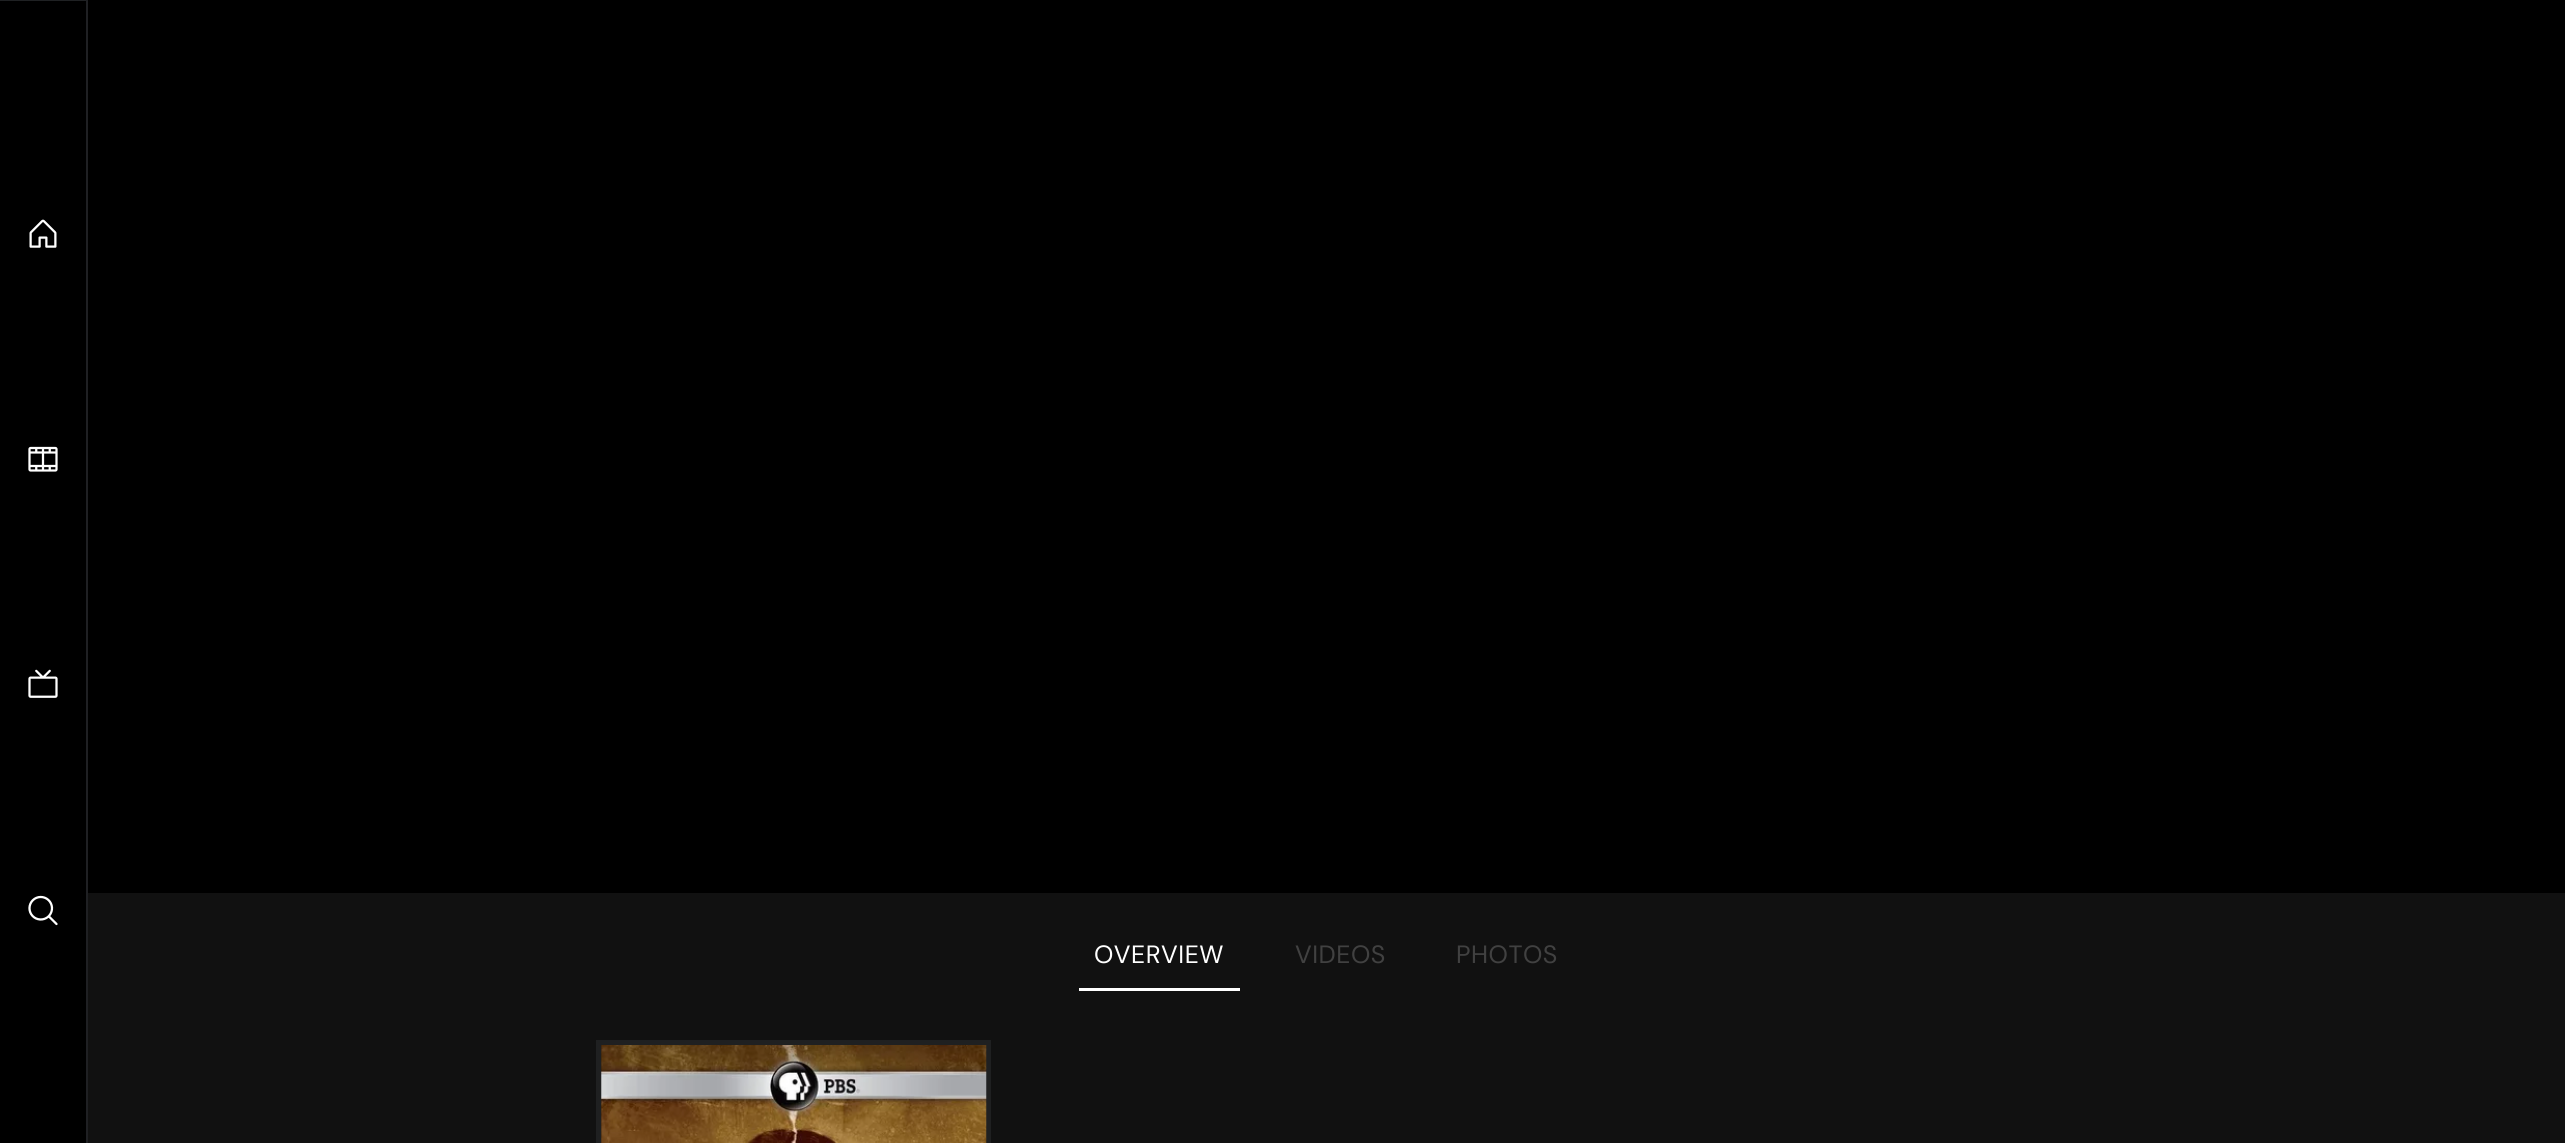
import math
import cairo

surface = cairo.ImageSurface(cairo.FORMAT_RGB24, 2565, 1143)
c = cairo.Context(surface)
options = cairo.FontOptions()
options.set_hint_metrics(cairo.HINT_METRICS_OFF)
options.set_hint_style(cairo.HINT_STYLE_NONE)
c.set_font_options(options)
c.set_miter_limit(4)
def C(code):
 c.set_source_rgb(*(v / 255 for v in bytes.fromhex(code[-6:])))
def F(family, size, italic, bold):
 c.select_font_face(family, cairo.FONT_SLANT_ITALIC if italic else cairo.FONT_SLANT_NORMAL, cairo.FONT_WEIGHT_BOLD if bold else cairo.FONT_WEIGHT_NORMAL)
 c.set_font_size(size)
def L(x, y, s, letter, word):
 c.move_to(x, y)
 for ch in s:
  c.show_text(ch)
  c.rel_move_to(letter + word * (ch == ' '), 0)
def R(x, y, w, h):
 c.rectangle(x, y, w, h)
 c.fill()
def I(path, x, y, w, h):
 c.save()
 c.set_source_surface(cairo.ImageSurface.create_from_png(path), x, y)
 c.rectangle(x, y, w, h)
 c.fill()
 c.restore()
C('111111')
c.paint()
C('000000')
R(0,0,88,1143)
C('1f2123')
c.new_path()
c.move_to(0,0)
c.line_to(88,0)
c.line_to(86,1)
c.line_to(0,1)
c.close_path()
c.fill()
c.set_source_rgba(0.612,0.639,0.686,0.2)
c.new_path()
c.move_to(88,0)
c.line_to(88,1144)
c.line_to(86,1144)
c.line_to(86,1)
c.close_path()
c.fill()
I('1.png',29,219,28,29)
I('2.png',28,446,30,26)
I('3.png',28,669,30,29)
I('4.png',28,895,30,31)
C('000000')
R(88,0,2477,893)
C('ffffff')
R(1079,988,161,3)
F('DM Sans',25,0,0)
L(1094,963,'OVERVIEW',.5,0)
C('414141')
L(1295,963,'VIDEOS',.5,0)
L(1456,963,'PHOTOS',.5,0)
c.rectangle(598.5,1042.5,390,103)
C('1f2021')
c.set_line_width(5)
c.stroke()
I('5.png',601,1045,386,98)
surface.write_to_png('o.png')
